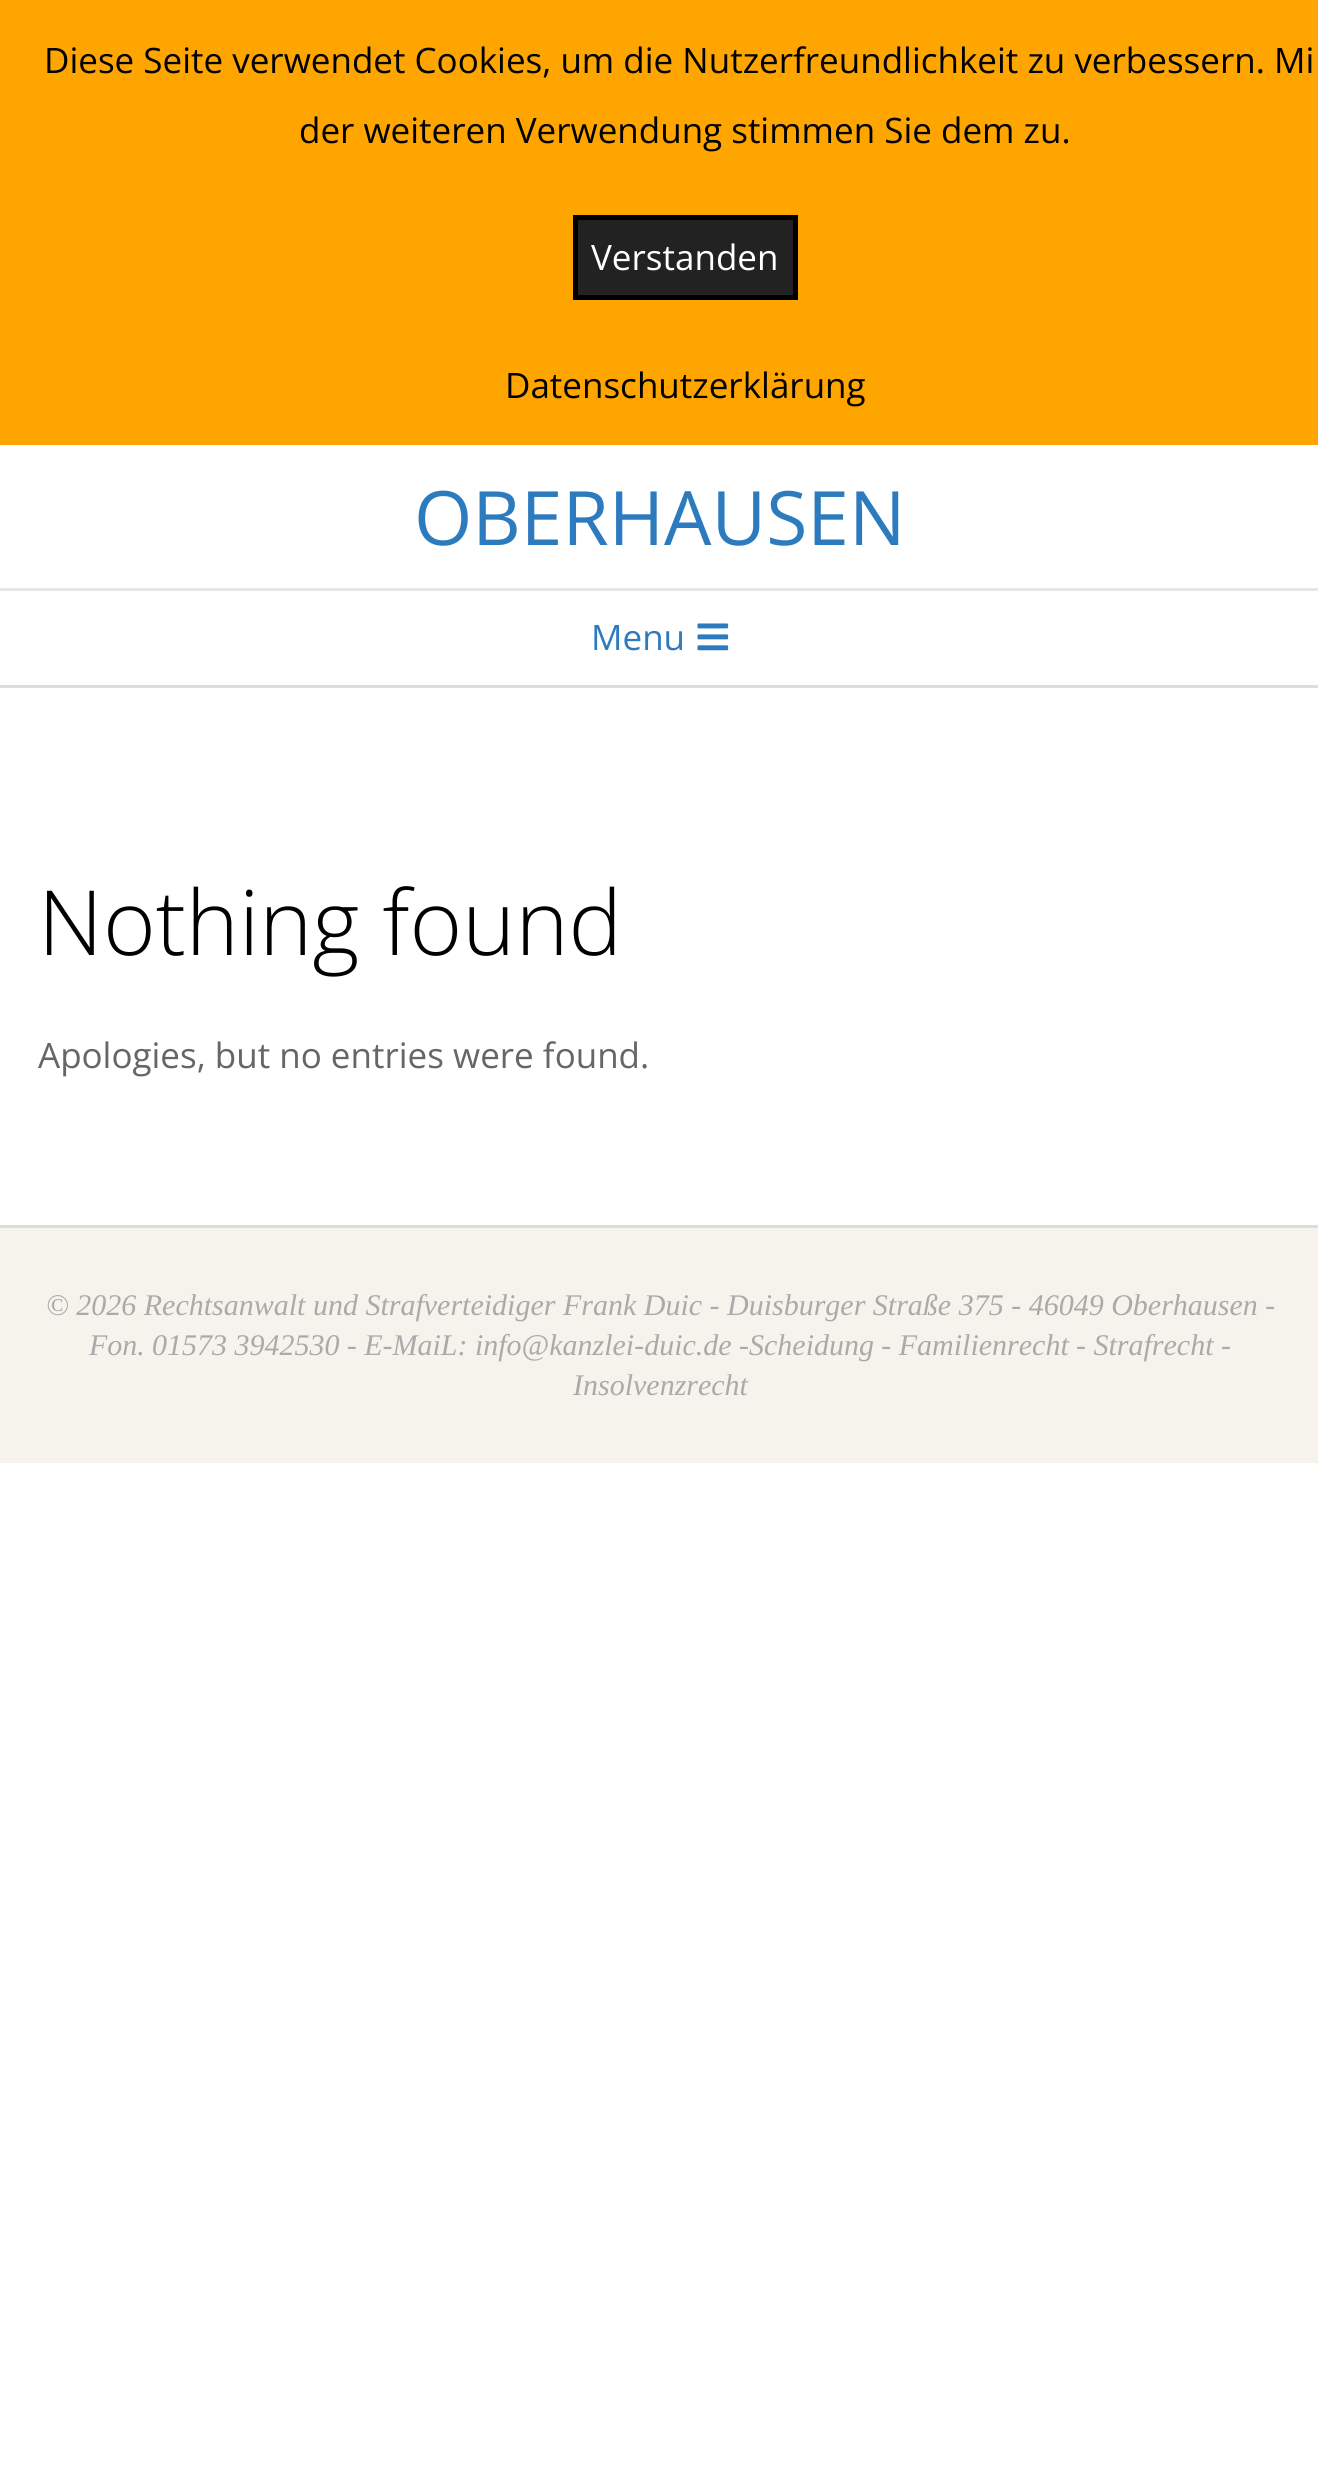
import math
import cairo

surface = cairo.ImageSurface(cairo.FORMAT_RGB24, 1318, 2483)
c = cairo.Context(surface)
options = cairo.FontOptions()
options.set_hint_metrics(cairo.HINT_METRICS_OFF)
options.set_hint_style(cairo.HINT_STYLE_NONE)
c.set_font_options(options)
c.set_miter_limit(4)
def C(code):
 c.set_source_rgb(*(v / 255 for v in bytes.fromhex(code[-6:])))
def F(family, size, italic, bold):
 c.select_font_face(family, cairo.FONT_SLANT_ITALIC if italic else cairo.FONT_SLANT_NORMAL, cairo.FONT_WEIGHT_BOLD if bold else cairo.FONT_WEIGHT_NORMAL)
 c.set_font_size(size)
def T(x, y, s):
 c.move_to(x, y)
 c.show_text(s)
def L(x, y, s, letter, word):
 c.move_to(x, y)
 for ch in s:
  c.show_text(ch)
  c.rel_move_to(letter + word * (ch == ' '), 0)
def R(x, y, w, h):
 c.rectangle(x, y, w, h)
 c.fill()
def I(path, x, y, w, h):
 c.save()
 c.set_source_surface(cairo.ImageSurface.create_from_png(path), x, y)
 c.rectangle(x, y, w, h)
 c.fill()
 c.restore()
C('ffffff')
c.paint()
C('ffa500')
R(0,0,1318,445)
F('Open Sans',35,0,0)
C('000000')
T(44,73,'Diese Seite verwendet Cookies, um die Nutzerfreundlichkeit zu verbessern. Mi')
T(299,143,'der weiteren Verwendung stimmen Sie dem zu.')
C('222222')
c.rectangle(575.5,217.5,220,80)
c.fill_preserve()
C('000000')
c.set_line_width(5)
c.stroke()
C('ffffff')
T(591,270,'Verstanden')
C('000000')
T(505,398,'Datenschutzerklärung')
C('dddddd')
R(0,685,1318,3)
F('Open Sans',75,0,0)
C('2d7bbf')
T(414,545,'OBERHAUSEN')
C('e6e6e6')
R(0,588,1318,3)
F('Open Sans',35,0,0)
C('2d7bbf')
T(591,650,'Menu')
I('1.png',697,623,32,28)
F('Open Sans Light',90,0,0)
C('000000')
T(38,955,'Nothing found')
F('Open Sans',35,0,0)
C('666666')
T(38,1068,'Apologies, but no entries were found.')
C('f6f3ed')
R(0,1228,1318,235)
C('dddddd')
R(0,1225,1318,3)
F('Liberation Serif',30,1,0)
C('aaaaaa')
T(46,1315,'© 2026 Rechtsanwalt und Strafverteidiger Frank Duic - Duisburger Straße 375 - 46049 Oberhausen -')
T(89,1355,'Fon.')
L(152,1355,'01573 3942530 - E-MaiL: info@kanzlei-duic.de -Scheidung - Familienrecht - Strafrecht -',0,-.1)
T(573,1395,'Insolvenzrecht')
surface.write_to_png('o.png')
